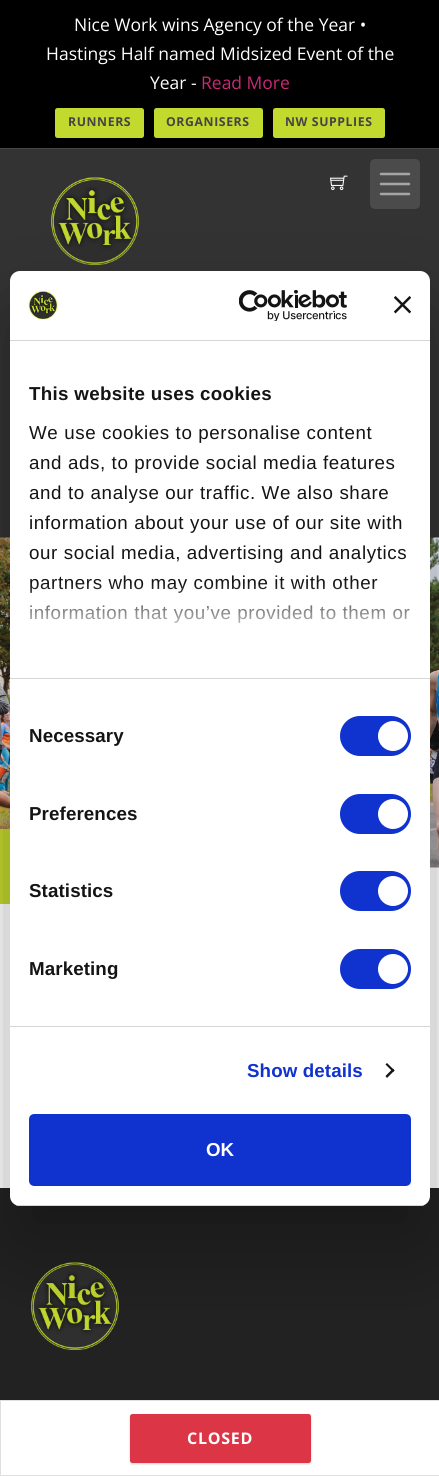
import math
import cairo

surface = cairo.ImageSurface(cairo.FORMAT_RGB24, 439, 1476)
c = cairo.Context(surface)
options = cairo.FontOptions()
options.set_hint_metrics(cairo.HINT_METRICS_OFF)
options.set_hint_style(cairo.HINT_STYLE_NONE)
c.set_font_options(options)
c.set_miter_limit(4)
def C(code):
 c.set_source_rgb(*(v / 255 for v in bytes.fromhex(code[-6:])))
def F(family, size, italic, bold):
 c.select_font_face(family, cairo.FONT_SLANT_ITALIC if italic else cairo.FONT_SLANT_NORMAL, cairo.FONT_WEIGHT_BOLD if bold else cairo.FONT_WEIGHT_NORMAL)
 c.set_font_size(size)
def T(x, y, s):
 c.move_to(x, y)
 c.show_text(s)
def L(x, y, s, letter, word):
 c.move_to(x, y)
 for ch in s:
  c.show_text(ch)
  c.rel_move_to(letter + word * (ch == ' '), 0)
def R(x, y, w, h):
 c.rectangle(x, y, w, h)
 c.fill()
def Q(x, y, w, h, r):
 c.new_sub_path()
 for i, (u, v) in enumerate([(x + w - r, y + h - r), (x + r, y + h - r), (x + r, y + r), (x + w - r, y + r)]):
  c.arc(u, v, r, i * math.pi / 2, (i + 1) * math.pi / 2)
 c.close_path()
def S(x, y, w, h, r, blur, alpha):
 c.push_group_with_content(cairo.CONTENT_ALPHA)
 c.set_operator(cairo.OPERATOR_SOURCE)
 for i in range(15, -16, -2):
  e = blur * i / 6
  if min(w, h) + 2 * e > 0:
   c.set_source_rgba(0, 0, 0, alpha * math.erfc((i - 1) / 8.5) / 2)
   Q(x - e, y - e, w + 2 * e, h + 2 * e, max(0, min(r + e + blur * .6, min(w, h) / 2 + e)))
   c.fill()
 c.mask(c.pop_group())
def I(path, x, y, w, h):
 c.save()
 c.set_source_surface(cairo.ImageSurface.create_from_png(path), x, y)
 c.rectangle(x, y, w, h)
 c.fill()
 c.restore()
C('ffffff')
c.paint()
C('000000')
R(0,0,439,148)
C('454545')
R(0,148,439,1)
F('Open Sans',17.5,0,0)
C('ffffff')
T(74,31,'Nice Work wins Agency of the Year •')
T(46,60,'Hastings Half named Midsized Event of the')
T(150,89,'Year -')
C('c92977')
T(201,89,'Read More')
C('c2d92e')
Q(55,108,89,30,2.5)
c.fill()
F('Open Sans',12.25,0,1)
C('444444')
L(68,126,'RUNNERS',.6,0)
C('c2d92e')
Q(154,108,109,30,2.5)
c.fill()
C('444444')
L(166,126,'ORGANISERS',.6,0)
C('c2d92e')
Q(273,108,112,30,2.5)
c.fill()
C('444444')
L(285,126,'NW SUPPLIES',.6,0)
C('333333')
R(0,149,439,389)
I('1.png',51,177,88,88)
I('2.png',330,175,18,16)
C('4b4b4b')
Q(370,159,50,50,5)
c.fill()
c.new_path()
c.move_to(381,174)
c.line_to(409,174)
c.move_to(381,184)
c.line_to(409,184)
c.move_to(381,194)
c.line_to(409,194)
C('a5a5a5')
c.set_line_width(2.5)
c.set_line_cap(cairo.LINE_CAP_ROUND)
c.stroke()
I('3.png',0,537,439,331)
C('c2d82e')
R(0,829,10,75)
c.rectangle(.5,1400.5,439,75)
C('dfdfdf')
c.set_line_width(1)
c.set_line_cap(cairo.LINE_CAP_BUTT)
c.stroke()
C('000000')
S(130,1415,181,49,2.5,1,.18)
C('dc3545')
Q(130,1414,181,49,2.5)
c.fill()
F('Open Sans',16,0,1)
C('ffffff')
L(187,1444,'CLOSED',.75,0)
C('222222')
R(0,1188,439,212)
I('4.png',31,1262,88,88)
C('000000')
S(10,311,420,935,10,42.5,.3)
C('ffffff')
Q(10,271,420,935,10)
c.fill()
C('d6d6d6')
R(10,340,420,1)
I('5.png',28,290,30,30)
I('6.png',239,290,108,31)
I('7.png',394,296,17,18)
R(10,678,420,1)
F('Liberation Sans',18.75,0,1)
C('141414')
L(29,400,'This website uses cookies',.3,0)
F('Liberation Sans',18.75,0,0)
L(29,439,'We use cookies to personalise content',.6,0)
L(29,469,'and ads, to provide social media features',.6,0)
L(29,499,'and to analyse our traffic. We also share',.6,0)
L(29,529,'information about your use of our site with',.6,0)
L(29,559,'our social media, advertising and analytics',.6,0)
L(29,589,'partners who may combine it with other',.6,0)
L(29,619,'information that you’ve provided to them or',.6,0)
gradient = cairo.LinearGradient(212,677,212,583)
gradient.add_color_stop_rgba(0,1,1,1,1)
gradient.add_color_stop_rgba(.5,1,1,1,.8)
gradient.add_color_stop_rgba(1,1,1,1,0)
c.set_source(gradient)
R(30,584,381,39)
C('d6d6d6')
R(10,1026,420,1)
F('Liberation Sans',18.75,0,1)
C('141414')
L(29,742,'Necessary',.1,0)
C('1032cf')
Q(340,716,71,40,20)
c.fill()
C('ffffff')
c.arc(393,736,15,0,2 * math.pi)
c.fill()
C('141414')
L(29,820,'Preferences',.1,0)
C('1032cf')
Q(340,794,71,40,20)
c.fill()
C('ffffff')
c.arc(393,814,15,0,2 * math.pi)
c.fill()
C('141414')
L(29,897,'Statistics',.1,0)
C('1032cf')
Q(340,871,71,40,20)
c.fill()
C('ffffff')
c.arc(393,891,15,0,2 * math.pi)
c.fill()
C('141414')
L(29,975,'Marketing',.1,0)
C('1032cf')
Q(340,949,71,40,20)
c.fill()
C('ffffff')
c.arc(393,969,15,0,2 * math.pi)
c.fill()
C('1032cf')
L(247,1077,'Show details',.1,0)
C('141414')
c.new_path()
c.move_to(387,1063)
c.line_to(394.5,1070.5)
c.line_to(393,1072)
c.line_to(385.5,1064.5)
c.close_path()
c.fill()
c.new_path()
c.move_to(393,1068.5)
c.line_to(394.5,1070.5)
c.line_to(387,1078)
c.line_to(385.5,1076)
c.close_path()
c.fill()
c.save()
Q(10,271,420,935,10)
c.clip()
C('d6d6d6')
R(10,1205,420,1)
c.restore()
C('1032cf')
Q(30.5,1115.5,379,69,3.5)
c.fill_preserve()
c.set_line_width(3)
c.stroke()
C('ffffff')
T(206,1156,'OK')
surface.write_to_png('o.png')
